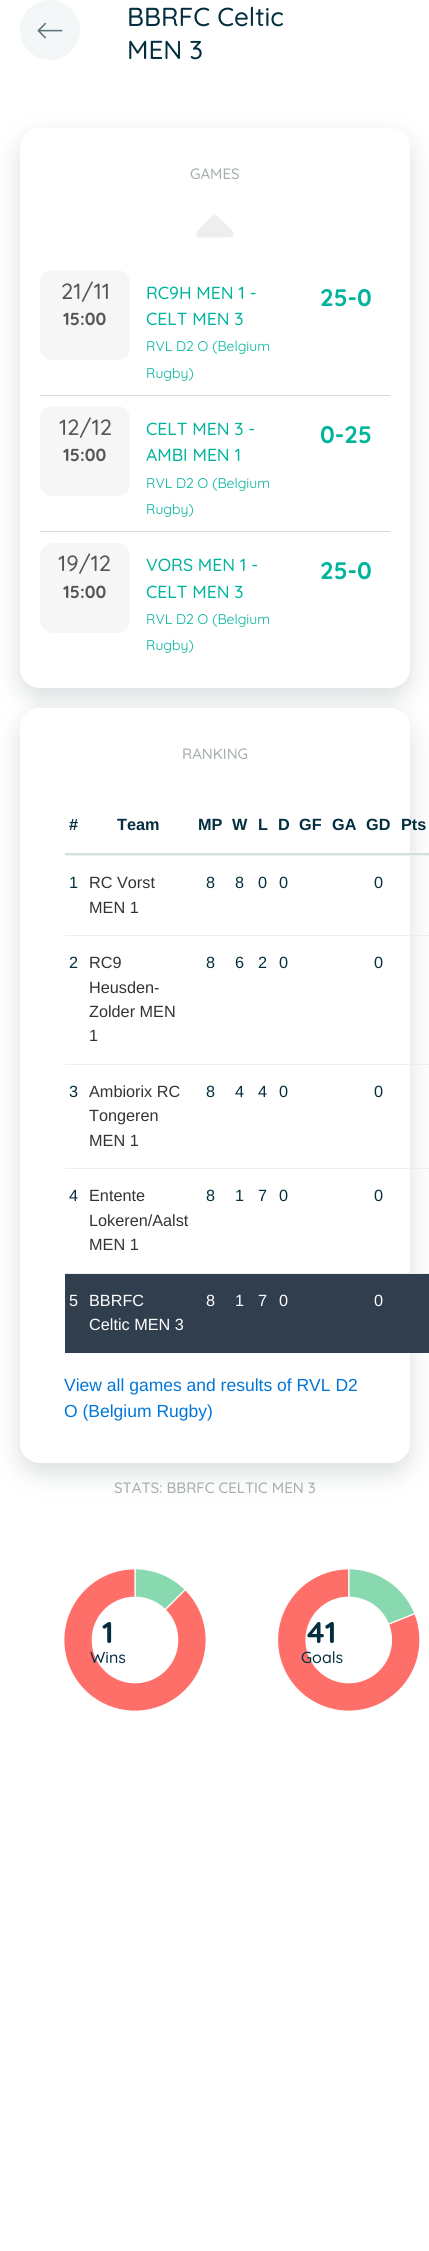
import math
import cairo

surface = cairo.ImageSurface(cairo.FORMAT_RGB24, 429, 2251)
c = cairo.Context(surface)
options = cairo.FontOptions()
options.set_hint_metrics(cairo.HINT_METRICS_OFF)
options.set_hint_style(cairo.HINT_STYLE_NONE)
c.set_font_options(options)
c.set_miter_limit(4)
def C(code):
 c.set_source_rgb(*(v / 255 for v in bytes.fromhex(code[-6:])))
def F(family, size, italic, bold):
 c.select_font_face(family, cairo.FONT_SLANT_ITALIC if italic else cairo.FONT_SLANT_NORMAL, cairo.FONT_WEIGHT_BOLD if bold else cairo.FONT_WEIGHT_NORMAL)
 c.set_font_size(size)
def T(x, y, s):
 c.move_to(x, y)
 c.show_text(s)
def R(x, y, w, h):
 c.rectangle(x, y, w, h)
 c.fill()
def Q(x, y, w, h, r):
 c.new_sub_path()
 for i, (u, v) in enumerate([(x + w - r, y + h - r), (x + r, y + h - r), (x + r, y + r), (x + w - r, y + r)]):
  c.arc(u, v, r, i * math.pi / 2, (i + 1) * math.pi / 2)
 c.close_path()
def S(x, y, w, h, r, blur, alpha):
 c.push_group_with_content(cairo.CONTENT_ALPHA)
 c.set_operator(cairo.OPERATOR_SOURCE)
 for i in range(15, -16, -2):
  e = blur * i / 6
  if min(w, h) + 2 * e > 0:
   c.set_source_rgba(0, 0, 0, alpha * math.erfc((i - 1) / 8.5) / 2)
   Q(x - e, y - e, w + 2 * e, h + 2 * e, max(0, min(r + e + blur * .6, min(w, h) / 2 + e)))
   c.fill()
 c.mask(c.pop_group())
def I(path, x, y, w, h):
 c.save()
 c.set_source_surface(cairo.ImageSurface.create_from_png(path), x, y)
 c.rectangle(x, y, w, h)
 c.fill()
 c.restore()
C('ffffff')
c.paint()
C('f4f7f7')
c.arc(50,30,29.5,0,2 * math.pi)
c.fill_preserve()
c.set_line_width(1)
c.stroke()
I('1.png',37,22,26,17)
F('Quicksand Medium',26,0,0)
C('022e3e')
T(127,26,'BBRFC Celtic')
T(127,59,'MEN 3')
C('475c5d')
S(20,138,390,560,20,12.5,.2)
C('ffffff')
Q(20,128,390,560,20)
c.fill()
F('Quicksand Medium',15,0,0)
C('a3adae')
T(190,179,'GAMES')
I('2.png',196,215,38,23)
C('d9d9d9')
R(40,395,350,1)
C('f6f6f6')
Q(40,270,90,90,13)
c.fill()
F('Quicksand Medium',22,0,0)
C('555555')
T(61,299,'21/11')
F('Quicksand',17.5,0,1)
T(63,325,'15:00')
F('Quicksand Medium',17.5,0,0)
C('00b49c')
T(146,299,'RC9H MEN 1 -')
T(146,325,'CELT MEN 3')
F('Quicksand',14,0,0)
T(146,351,'RVL D2 O (Belgium')
T(146,378,'Rugby)')
F('Quicksand',24,0,1)
T(320,306,'25-0')
C('d9d9d9')
R(40,531,350,1)
C('f6f6f6')
Q(40,406,90,90,13)
c.fill()
F('Quicksand Medium',22,0,0)
C('555555')
T(59,435,'12/12')
F('Quicksand',17.5,0,1)
T(63,461,'15:00')
F('Quicksand Medium',17.5,0,0)
C('00b49c')
T(146,435,'CELT MEN 3 -')
T(146,461,'AMBI MEN 1')
F('Quicksand',14,0,0)
T(146,488,'RVL D2 O (Belgium')
T(146,514,'Rugby)')
F('Quicksand',24,0,1)
T(320,443,'0-25')
C('f6f6f6')
Q(40,543,90,90,13)
c.fill()
F('Quicksand Medium',22,0,0)
C('555555')
T(58,571,'19/12')
F('Quicksand',17.5,0,1)
T(63,598,'15:00')
F('Quicksand Medium',17.5,0,0)
C('00b49c')
T(146,571,'VORS MEN 1 -')
T(146,598,'CELT MEN 3')
F('Quicksand',14,0,0)
T(146,624,'RVL D2 O (Belgium')
T(146,650,'Rugby)')
F('Quicksand',24,0,1)
T(320,579,'25-0')
C('475c5d')
S(20,718,390,755,20,12.5,.2)
C('ffffff')
Q(20,708,390,755,20)
c.fill()
F('Quicksand Medium',15,0,0)
C('a3adae')
T(182,759,'RANKING')
C('d4dfe1')
R(65,853,364,2)
F('Liberation Sans',16.25,0,1)
C('022e3e')
T(69,830,'#')
T(117,830,'Team')
T(198,830,'MP')
T(232,830,'W')
T(258,830,'L')
T(278,830,'D')
T(299,830,'GF')
T(332,830,'GA')
T(366,830,'GD')
T(401,830,'Pts')
C('eeeeee')
R(65,855,364,1)
F('Liberation Sans',16.25,0,0)
C('022e3e')
T(69,888,'1')
C('333333')
T(89,888,'RC Vorst')
T(89,913,'MEN 1')
C('022e3e')
T(206,888,'8')
T(235,888,'8')
T(258,888,'0')
T(279,888,'0')
T(374,888,'0')
C('eeeeee')
R(65,935,364,1)
C('022e3e')
T(69,968,'2')
C('333333')
T(89,968,'RC9')
T(89,993,'Heusden-')
T(89,1017,'Zolder MEN')
T(89,1041,'1')
C('022e3e')
T(206,968,'8')
T(235,968,'6')
T(258,968,'2')
T(279,968,'0')
T(374,968,'0')
C('eeeeee')
R(65,1064,364,1)
C('022e3e')
T(69,1097,'3')
C('333333')
T(89,1097,'Ambiorix RC')
T(89,1121,'Tongeren')
T(89,1146,'MEN 1')
C('022e3e')
T(206,1097,'8')
T(235,1097,'4')
T(258,1097,'4')
T(279,1097,'0')
T(374,1097,'0')
C('eeeeee')
R(65,1168,364,1)
C('022e3e')
T(69,1201,'4')
C('333333')
T(89,1201,'Entente')
T(89,1226,'Lokeren/Aalst')
T(89,1250,'MEN 1')
C('022e3e')
T(206,1201,'8')
T(235,1201,'1')
T(258,1201,'7')
T(279,1201,'0')
T(374,1201,'0')
C('303e4d')
R(65,1274,364,79)
C('eeeeee')
R(65,1273,364,1)
C('ffffff')
T(69,1306,'5')
T(89,1306,'BBRFC')
T(89,1330,'Celtic MEN 3')
T(206,1306,'8')
T(235,1306,'1')
T(258,1306,'7')
T(279,1306,'0')
T(374,1306,'0')
F('Liberation Sans',17.5,0,0)
C('0275d8')
T(64,1391,'View all games and results of RVL D2')
T(64,1417,'O (Belgium Rugby)')
F('Quicksand Medium',15,0,0)
C('a3adae')
T(114,1493,'STATS: BBRFC CELTIC MEN 3')
I('3.png',63,1568,144,144)
F('Quicksand',30,0,1)
C('022e3e')
T(102,1643,'1')
F('Quicksand Medium',16,0,0)
T(90,1663,'Wins')
I('4.png',277,1568,143,144)
F('Quicksand',30,0,1)
T(307,1643,'41')
F('Quicksand Medium',16,0,0)
T(301,1663,'Goals')
surface.write_to_png('o.png')
